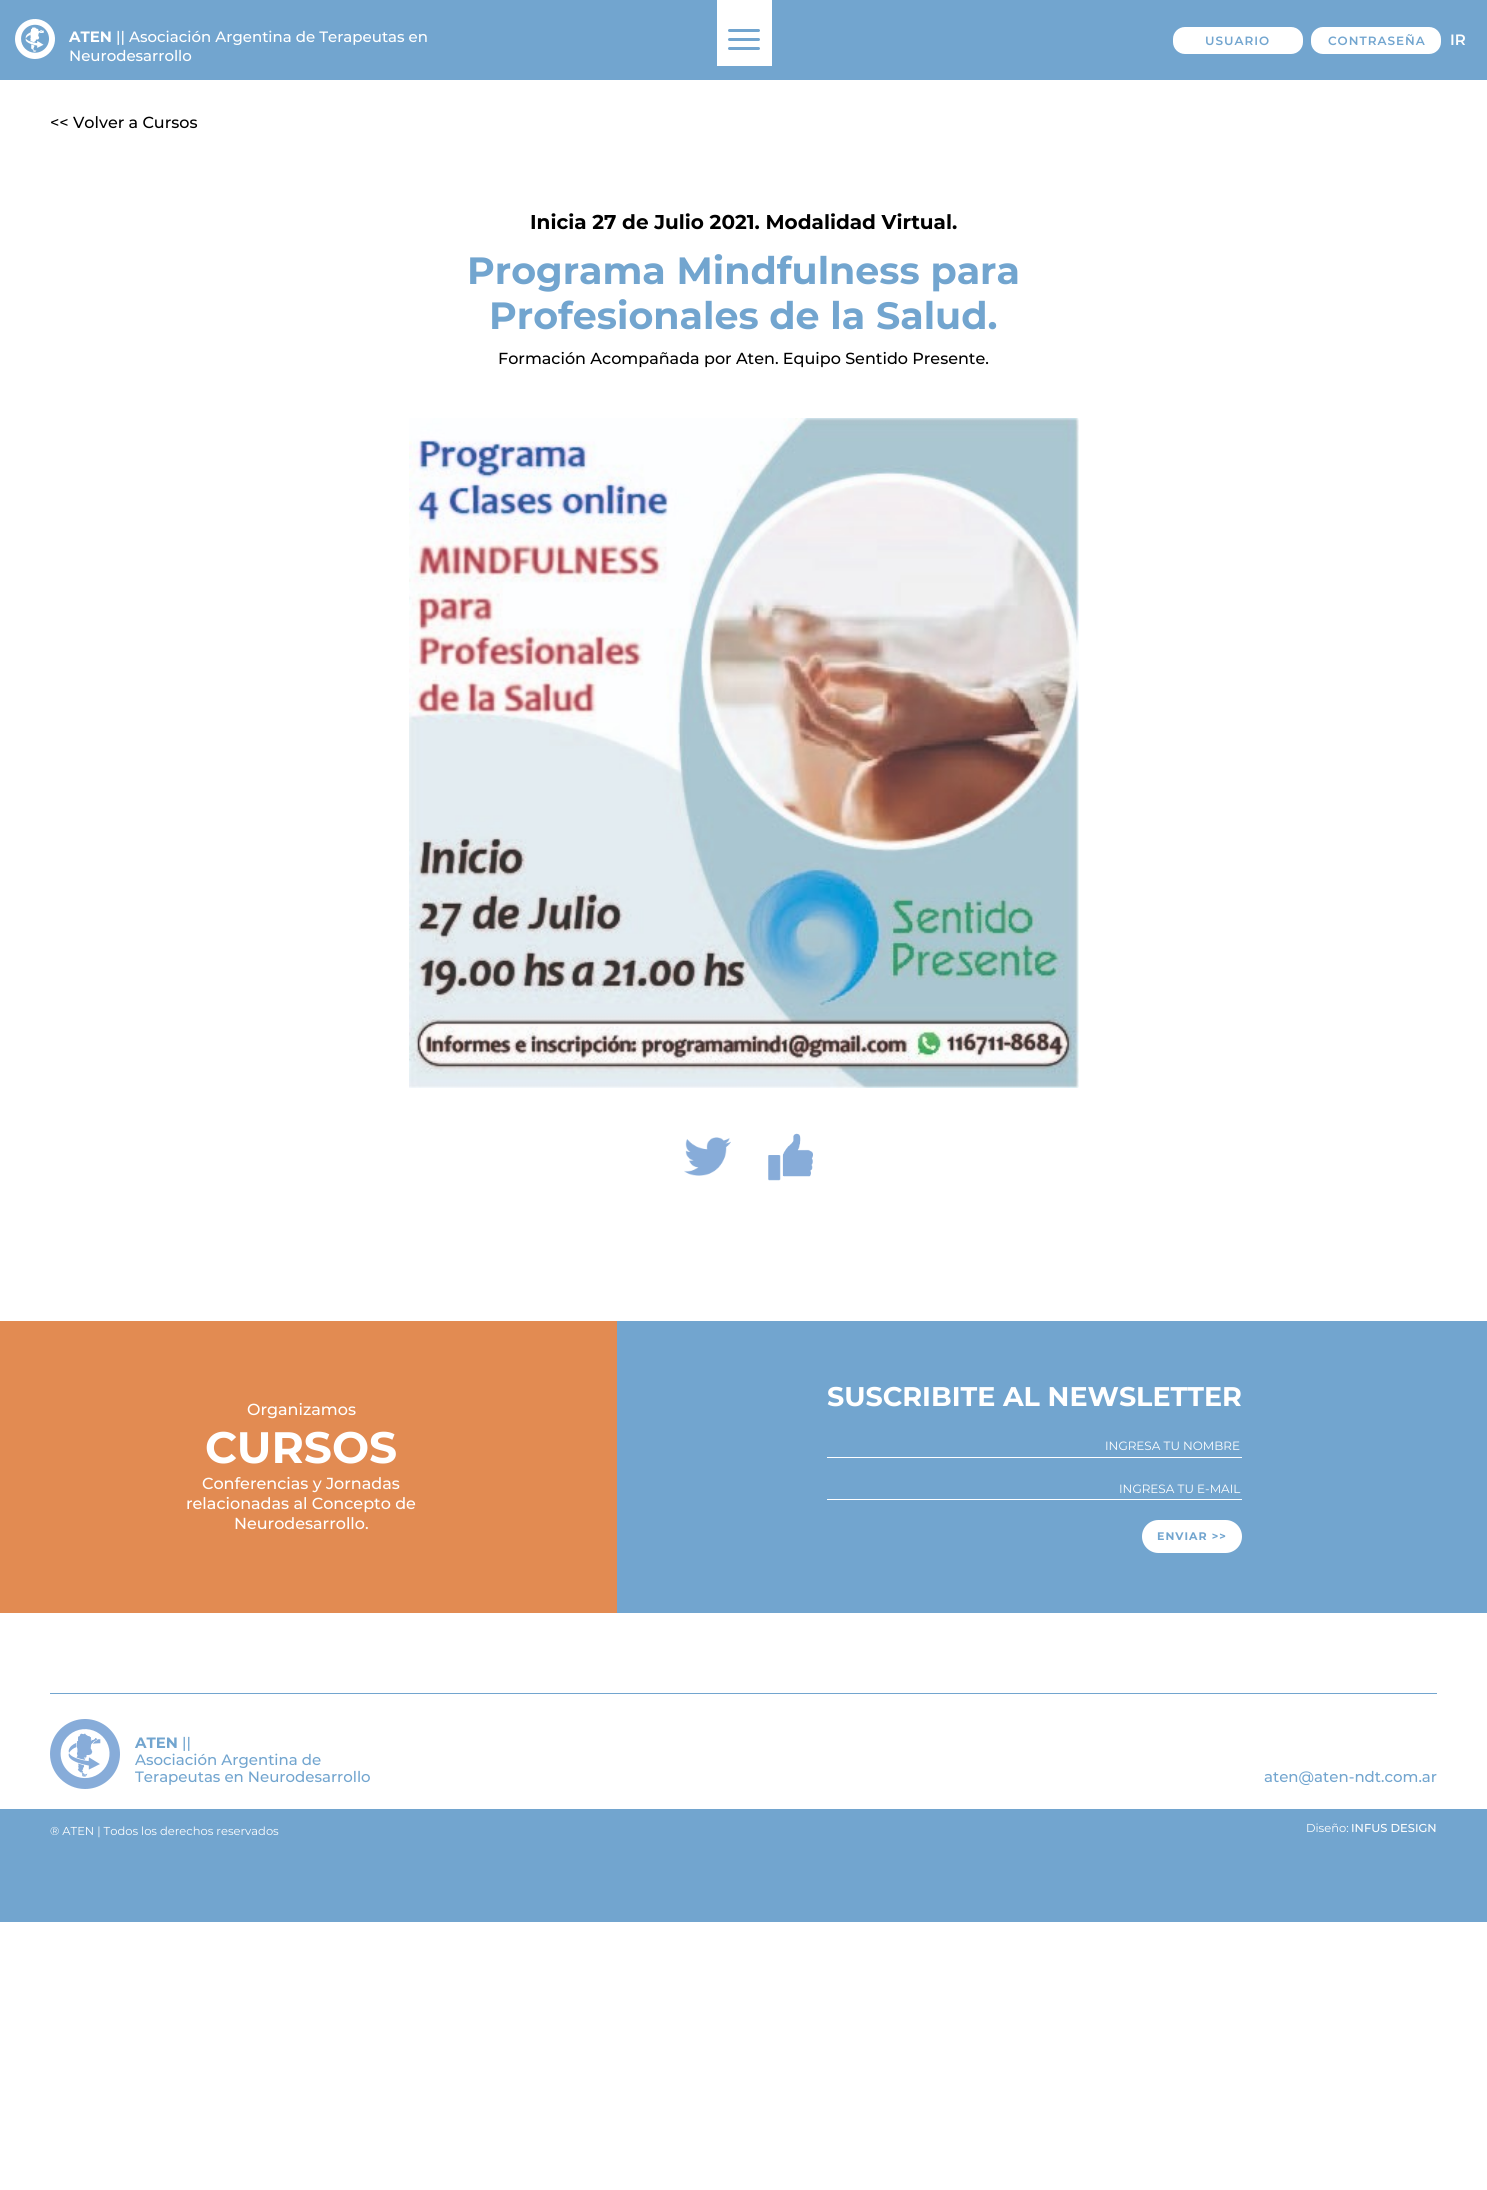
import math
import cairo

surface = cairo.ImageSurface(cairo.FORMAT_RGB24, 1487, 2190)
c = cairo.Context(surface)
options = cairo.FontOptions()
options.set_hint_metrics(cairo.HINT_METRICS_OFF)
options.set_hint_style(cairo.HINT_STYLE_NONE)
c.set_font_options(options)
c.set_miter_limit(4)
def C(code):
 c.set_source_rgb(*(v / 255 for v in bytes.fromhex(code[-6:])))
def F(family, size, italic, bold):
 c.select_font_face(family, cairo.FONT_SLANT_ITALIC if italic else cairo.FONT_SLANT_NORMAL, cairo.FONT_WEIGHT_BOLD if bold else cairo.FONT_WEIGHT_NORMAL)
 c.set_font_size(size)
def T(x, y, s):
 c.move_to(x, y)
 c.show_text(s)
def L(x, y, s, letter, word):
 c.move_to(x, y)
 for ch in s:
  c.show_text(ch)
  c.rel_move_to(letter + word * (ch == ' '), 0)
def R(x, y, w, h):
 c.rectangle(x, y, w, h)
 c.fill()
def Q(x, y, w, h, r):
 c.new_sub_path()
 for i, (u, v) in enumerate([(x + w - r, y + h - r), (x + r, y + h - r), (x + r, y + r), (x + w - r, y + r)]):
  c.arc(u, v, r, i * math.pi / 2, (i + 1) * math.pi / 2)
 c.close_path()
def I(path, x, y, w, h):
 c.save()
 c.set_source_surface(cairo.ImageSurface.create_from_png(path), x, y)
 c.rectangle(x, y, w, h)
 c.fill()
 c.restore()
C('ffffff')
c.paint()
C('72a5cf')
R(0,0,1487,80)
I('1.png',15,19,40,40)
F('Montserrat',15,0,1)
C('ffffff')
T(69,42,'ATEN')
F('Montserrat Medium',15,0,0)
T(116,42,'|| Asociación Argentina de Terapeutas en')
T(69,61,'Neurodesarrollo')
R(717,0,55,66)
C('72a5cf')
Q(728,29,32,3,1.5)
c.fill()
Q(728,38,32,3,1.5)
c.fill()
Q(728,47,32,3,1.5)
c.fill()
C('ffffff')
Q(1173,27,130,27,12)
c.fill()
F('Montserrat SemiBold',12,0,0)
C('72a5cf')
L(1205,45,'USUARIO',1,0)
C('ffffff')
Q(1311,27,130,27,12)
c.fill()
C('72a5cf')
L(1328,45,'CONTRASEÑA',1,0)
F('Montserrat SemiBold',15,0,0)
C('ffffff')
T(1450,45,'IR')
F('Montserrat Medium',16,0,0)
C('000000')
T(50,128,'<< Volver a Cursos')
F('Montserrat',20,0,1)
T(530,229,'Inicia 27 de Julio 2021. Modalidad Virtual.')
F('Montserrat',38,0,1)
C('72a5cf')
T(467,284,'Programa Mindfulness para')
T(489,329,'Profesionales de la Salud.')
F('Montserrat Medium',16,0,0)
C('000000')
T(498,364,'Formación Acompañada por Aten. Equipo Sentido Presente.')
I('2.png',409,418,670,670)
I('3.png',684,1137,47,39)
I('4.png',768,1133,45,48)
C('e28b52')
R(0,1321,617,292)
C('ffffff')
T(247,1415,'Organizamos')
F('Montserrat',44,0,1)
T(205,1463,'CURSOS')
F('Montserrat Medium',16,0,0)
T(202,1489,'Conferencias y Jornadas')
T(186,1509,'relacionadas al Concepto de')
T(234,1529,'Neurodesarrollo.')
C('72a5cf')
R(617,1321,870,292)
F('Montserrat',27,0,1)
C('ffffff')
T(827,1406,'SUSCRIBITE AL NEWSLETTER')
R(827,1457,415,1)
F('Montserrat',12,0,0)
T(1105,1450,'INGRESA TU NOMBRE')
R(827,1499,415,1)
T(1119,1493,'INGRESA TU E-MAIL')
Q(1142,1520,100,33,16.5)
c.fill()
F('Montserrat',11,0,1)
C('72a5cf')
L(1157,1540,'ENVIAR >>',1,0)
R(50,1693,1387,1)
I('5.png',50,1719,70,70)
F('Montserrat',15,0,1)
T(135,1748,'ATEN')
F('Montserrat Medium',15,0,0)
T(182,1748,'||')
T(135,1765,'Asociación Argentina de')
T(135,1782,'Terapeutas en Neurodesarrollo')
T(1264,1782,'aten@aten-ndt.com.ar')
R(0,1809,1487,113)
F('Montserrat',11.5,0,0)
C('ffffff')
T(50,1835,'® ATEN | Todos los derechos reservados')
T(1306,1832,'Diseño:')
F('Montserrat Medium',11.5,0,0)
T(1351,1832,'INFUS DESIGN')
surface.write_to_png('o.png')
